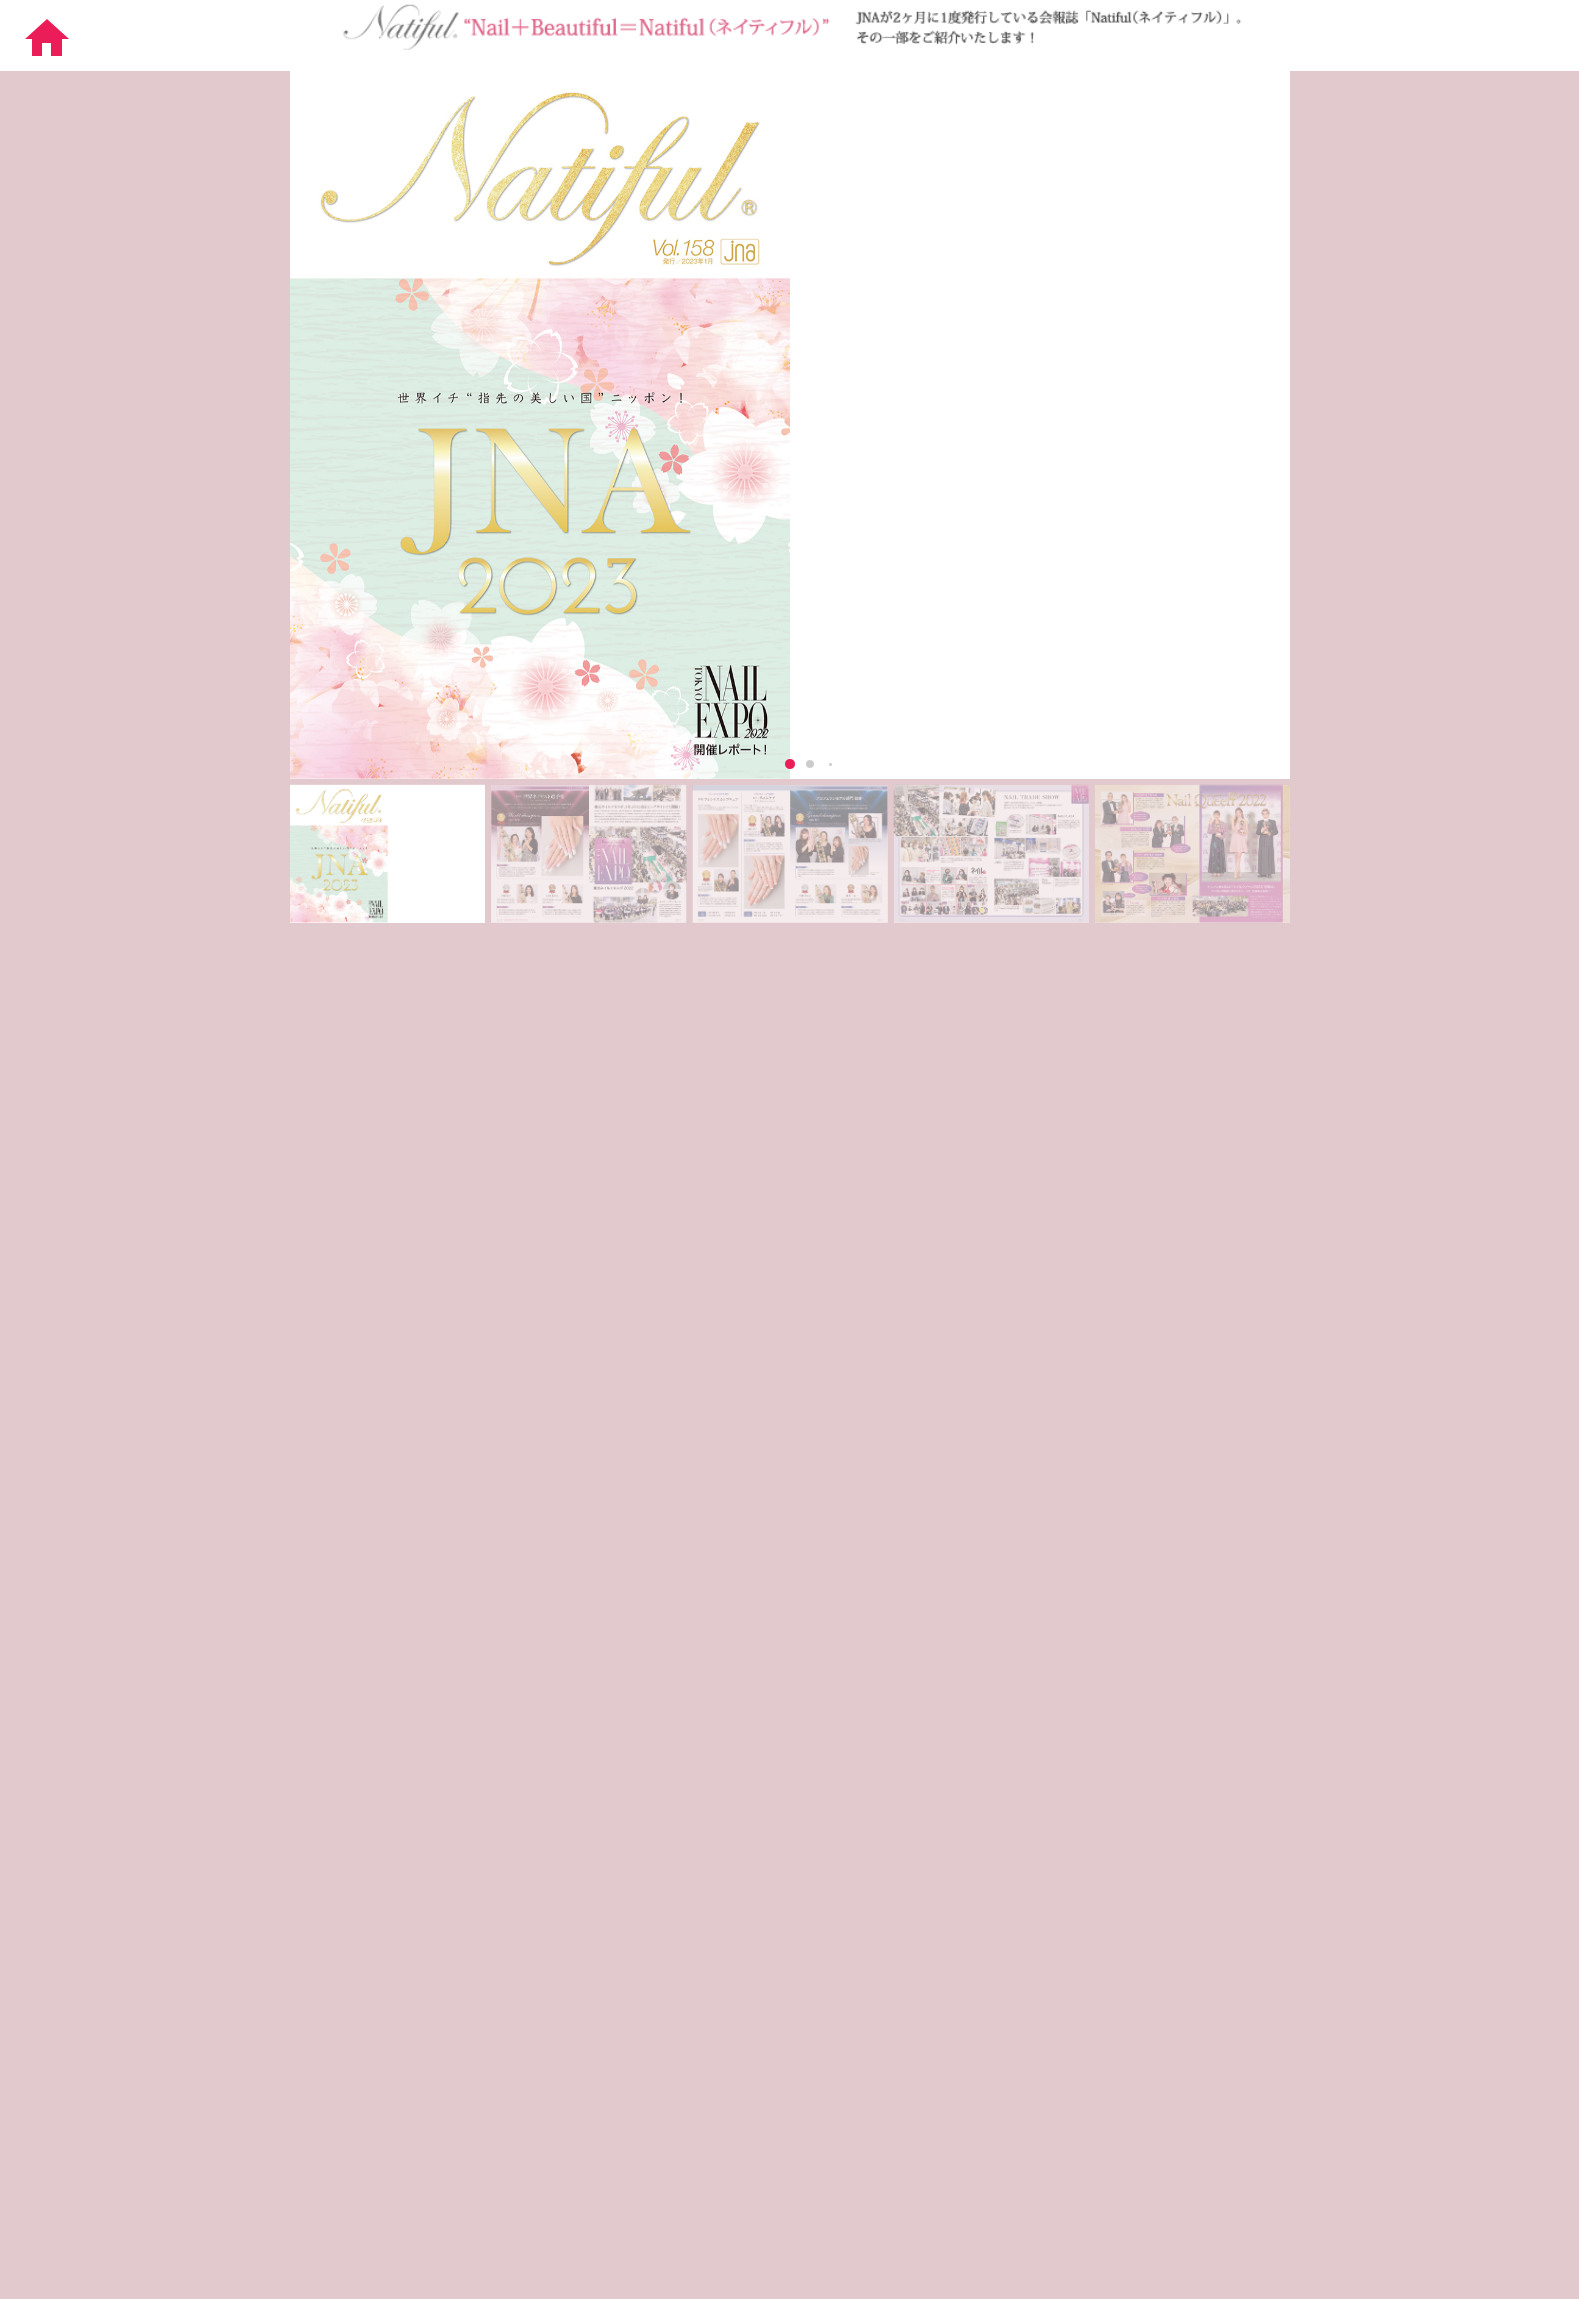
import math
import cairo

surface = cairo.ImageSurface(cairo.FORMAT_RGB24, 1579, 2299)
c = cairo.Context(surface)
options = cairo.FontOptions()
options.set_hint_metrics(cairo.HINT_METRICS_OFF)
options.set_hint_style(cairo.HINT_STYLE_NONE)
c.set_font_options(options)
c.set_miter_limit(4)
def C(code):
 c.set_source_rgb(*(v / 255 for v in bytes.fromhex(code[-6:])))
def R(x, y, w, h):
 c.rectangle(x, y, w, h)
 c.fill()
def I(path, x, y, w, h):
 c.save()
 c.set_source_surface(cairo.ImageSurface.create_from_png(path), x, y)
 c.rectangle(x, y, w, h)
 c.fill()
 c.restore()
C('e2c9cd')
c.paint()
C('ffffff')
R(0,0,1579,71)
C('eb1d58')
c.new_path()
c.move_to(42,56)
c.line_to(42,43)
c.line_to(51,43)
c.line_to(51,56)
c.line_to(62,56)
c.line_to(62,39)
c.line_to(69,39)
c.line_to(47,19)
c.line_to(25,39)
c.line_to(32,39)
c.line_to(32,56)
c.close_path()
c.fill()
I('1.png',343,4,899,46)
C('ffffff')
R(290,71,1000,708)
I('2.png',290,92,500,687)
C('eb1d58')
c.arc(790,764,5,0,2 * math.pi)
c.fill()
C('cccccc')
c.arc(810,764,4,0,2 * math.pi)
c.fill()
c.arc(830.5,764.5,1.5,0,2 * math.pi)
c.fill()
C('ffffff')
R(290,785,195,138)
I('3.png',290,784,195,139)
C('eedfe1')
R(491,785,195,138)
I('4.png',491,784,196,139)
R(693,785,195,138)
I('5.png',692,785,196,138)
R(894,785,195,138)
I('6.png',893,784,196,138)
R(1095,785,195,138)
I('7.png',1095,784,195,139)
surface.write_to_png('o.png')
